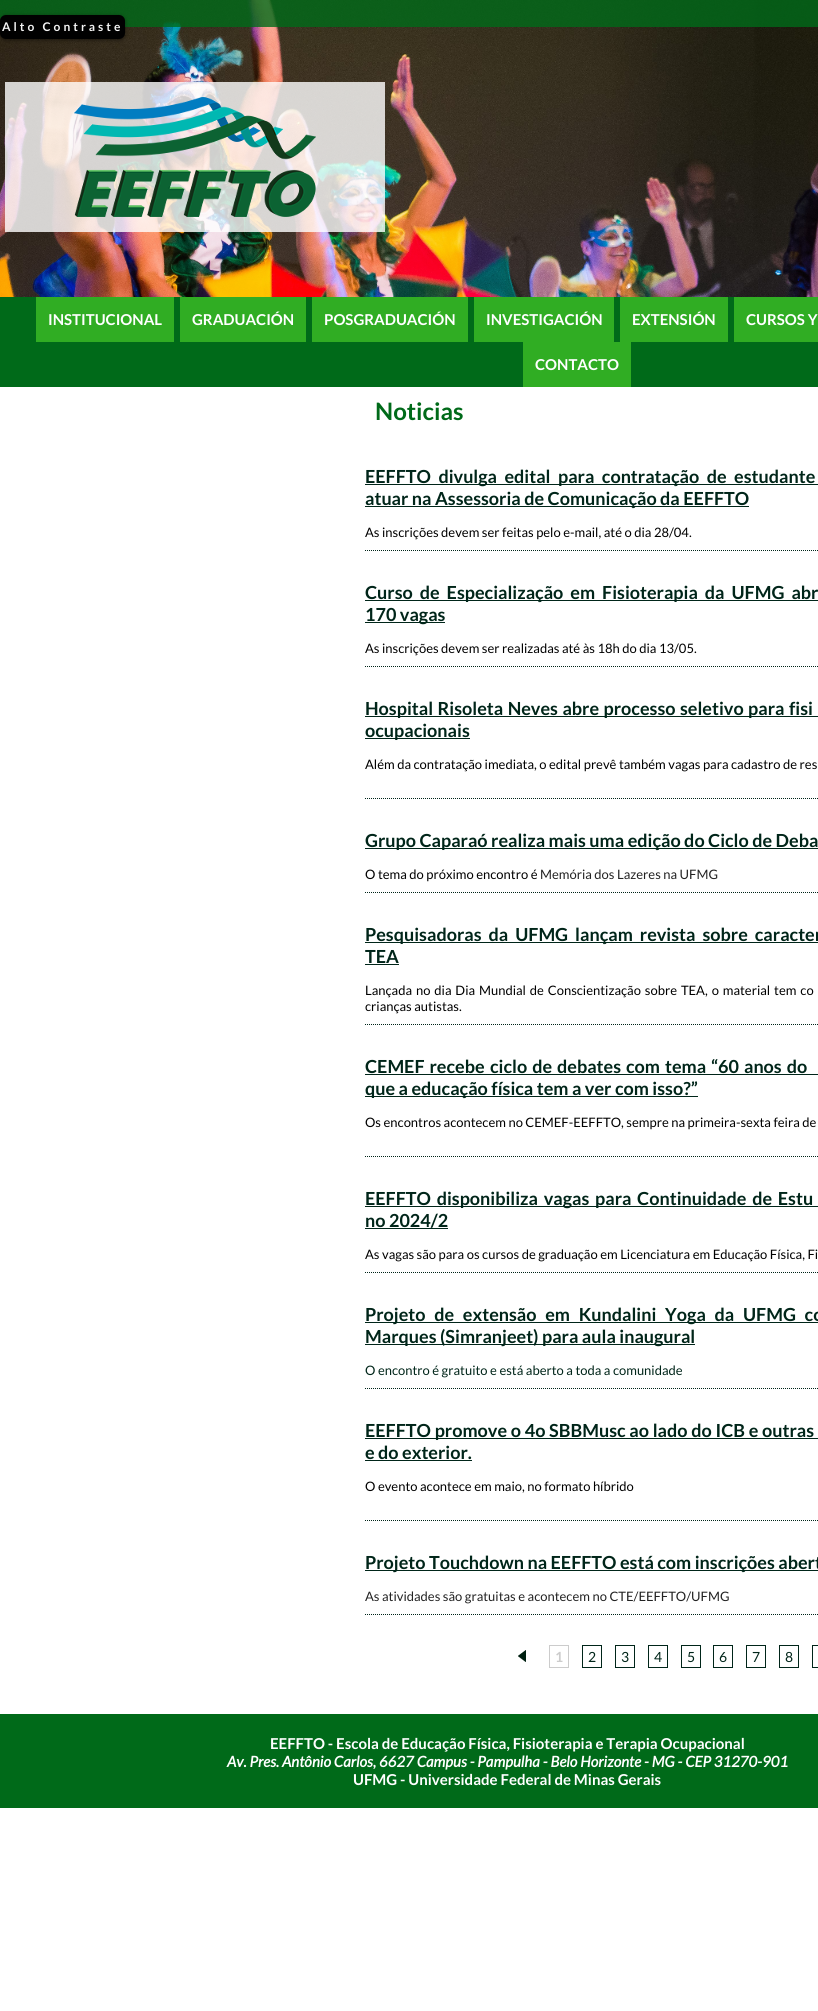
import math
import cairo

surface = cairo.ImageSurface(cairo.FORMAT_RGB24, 818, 2011)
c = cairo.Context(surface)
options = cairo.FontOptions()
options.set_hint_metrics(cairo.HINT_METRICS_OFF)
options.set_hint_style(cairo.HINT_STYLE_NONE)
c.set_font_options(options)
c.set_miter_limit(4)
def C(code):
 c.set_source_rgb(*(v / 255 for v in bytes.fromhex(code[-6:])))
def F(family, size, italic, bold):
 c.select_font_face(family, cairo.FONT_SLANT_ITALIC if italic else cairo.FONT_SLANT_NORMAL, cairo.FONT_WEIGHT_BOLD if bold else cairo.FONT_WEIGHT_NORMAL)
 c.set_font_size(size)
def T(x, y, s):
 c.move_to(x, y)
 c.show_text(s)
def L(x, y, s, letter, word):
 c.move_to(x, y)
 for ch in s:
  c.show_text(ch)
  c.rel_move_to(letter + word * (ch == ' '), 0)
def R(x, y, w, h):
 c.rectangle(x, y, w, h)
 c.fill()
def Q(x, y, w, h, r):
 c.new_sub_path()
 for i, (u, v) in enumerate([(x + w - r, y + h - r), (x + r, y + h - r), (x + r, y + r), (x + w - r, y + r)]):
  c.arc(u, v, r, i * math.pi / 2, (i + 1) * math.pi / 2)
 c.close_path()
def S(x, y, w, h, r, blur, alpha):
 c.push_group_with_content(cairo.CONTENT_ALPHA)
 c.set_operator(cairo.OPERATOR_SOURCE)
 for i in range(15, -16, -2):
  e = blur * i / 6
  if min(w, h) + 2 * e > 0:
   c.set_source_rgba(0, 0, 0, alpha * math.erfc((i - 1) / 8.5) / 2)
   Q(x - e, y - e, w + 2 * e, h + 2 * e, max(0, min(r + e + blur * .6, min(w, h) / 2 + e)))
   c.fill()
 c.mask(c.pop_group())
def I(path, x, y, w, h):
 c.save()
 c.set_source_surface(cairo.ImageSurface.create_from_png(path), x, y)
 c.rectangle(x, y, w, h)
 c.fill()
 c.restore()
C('ffffff')
c.paint()
I('1.png',0,0,818,297)
c.set_source_rgba(0,0.416,0.098,0.8)
R(0,0,818,27)
C('000000')
S(0,16,125,24,6,2,.5)
C('010101')
Q(0,15,125,24,6)
c.fill()
F('Lato',12,0,1)
C('f4f4f4')
L(2,31,'Alto Contraste',3,0)
c.set_source_rgba(1,1,1,0.8)
R(5,82,380,150)
I('2.png',74,97,242,120)
C('006a19')
R(0,297,818,90)
C('30ad23')
R(36,297,138,45)
F('Lato',15,0,1)
C('ffffff')
T(48,325,'INSTITUCIONAL')
C('30ad23')
R(180,297,126,45)
C('ffffff')
T(192,325,'GRADUACIÓN')
C('30ad23')
R(312,297,156,45)
C('ffffff')
T(324,325,'POSGRADUACIÓN')
C('30ad23')
R(474,297,140,45)
C('ffffff')
T(486,325,'INVESTIGACIÓN')
C('30ad23')
R(620,297,108,45)
C('ffffff')
T(632,325,'EXTENSIÓN')
C('30ad23')
R(734,297,84,45)
C('ffffff')
T(746,325,'CURSOS Y')
C('30ad23')
R(523,342,108,45)
C('ffffff')
T(535,370,'CONTACTO')
F('Lato',24,0,1)
C('006a19')
T(375,420,'Noticias')
c.new_path()
c.move_to(365,550.5)
c.line_to(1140,550.5)
C('002519')
c.set_line_width(1)
c.set_dash([1,1])
c.stroke()
R(365,484,453,1)
F('Lato',18,0,1)
L(365,483,'EEFFTO divulga edital para contratação de estudante',0,4)
R(365,506,384,1)
T(365,505,'atuar na Assessoria de Comunicação da EEFFTO')
F('Lato',13,0,0)
C('000000')
T(365,537,'As inscrições devem ser feitas pelo e-mail, até o dia 28/04.')
c.new_path()
c.move_to(365,666.5)
c.line_to(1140,666.5)
C('002519')
c.stroke()
R(365,600,453,1)
F('Lato',18,0,1)
L(365,599,'Curso de Especialização em Fisioterapia da UFMG abr',0,3.5)
R(365,622,80,1)
T(365,621,'170 vagas')
F('Lato',13,0,0)
C('000000')
T(365,653,'As inscrições devem ser realizadas até às 18h do dia 13/05.')
c.new_path()
c.move_to(365,798.5)
c.line_to(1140,798.5)
C('002519')
c.stroke()
R(365,716,453,1)
F('Lato',18,0,1)
L(365,715,'Hospital Risoleta Neves abre processo seletivo para fisi',0,1)
R(365,738,105,1)
T(365,737,'ocupacionais')
F('Lato',13,0,0)
C('000000')
T(365,769,'Além da contratação imediata, o edital prevê também vagas para cadastro de res')
c.new_path()
c.move_to(365,892.5)
c.line_to(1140,892.5)
C('002519')
c.stroke()
R(365,848,453,1)
F('Lato',18,0,1)
T(365,847,'Grupo Caparaó realiza mais uma edição do Ciclo de Deba')
F('Lato',13,0,0)
C('000000')
T(365,879,'O tema do próximo encontro é')
C('222222')
T(540,879,'Memória dos Lazeres na UFMG')
c.new_path()
c.move_to(365,1024.5)
c.line_to(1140,1024.5)
C('002519')
c.stroke()
R(365,942,453,1)
F('Lato',18,0,1)
L(365,941,'Pesquisadoras da UFMG lançam revista sobre caracter',0,3.5)
T(365,963,'TEA')
R(365,964,34,1)
F('Lato',13,0,0)
C('000000')
L(365,995,'Lançada no dia Dia Mundial de Conscientização sobre TEA, o material tem co',0,1.4)
T(365,1011,'crianças autistas.')
c.new_path()
c.move_to(365,1156.5)
c.line_to(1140,1156.5)
C('002519')
c.stroke()
F('Lato',18,0,1)
L(365,1073,'CEMEF recebe',0,1.5)
R(365,1074,453,1)
L(490,1073,'ciclo de debates com tema “60 anos do',0,1.5)
R(365,1096,333,1)
T(365,1095,'que a educação física tem a ver com isso?”')
F('Lato',13,0,0)
C('000000')
T(365,1127,'Os encontros acontecem no CEMEF-EEFFTO, sempre na primeira-sexta feira de')
c.new_path()
c.move_to(365,1272.5)
c.line_to(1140,1272.5)
C('002519')
c.stroke()
R(365,1206,453,1)
F('Lato',18,0,1)
L(365,1205,'EEFFTO disponibiliza vagas para Continuidade de Estu',0,2.25)
T(365,1227,'no 2024/2')
R(365,1228,83,1)
F('Lato',13,0,0)
C('000000')
T(365,1259,'As vagas são para os cursos de graduação em Licenciatura em Educação Física, Fi')
c.new_path()
c.move_to(365,1388.5)
c.line_to(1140,1388.5)
C('002519')
c.stroke()
R(365,1322,453,1)
F('Lato',18,0,1)
L(365,1321,'Projeto de extensão em Kundalini Yoga da UFMG co',0,5.25)
R(365,1344,330,1)
T(365,1343,'Marques (Simranjeet) para aula inaugural')
F('Lato',13,0,0)
T(365,1375,'O encontro é gratuito e está aberto a toda a comunidade')
c.new_path()
c.move_to(365,1520.5)
c.line_to(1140,1520.5)
c.stroke()
R(365,1438,453,1)
F('Lato',18,0,1)
L(365,1437,'EEFFTO promove o 4o SBBMusc ao lado do ICB e outras',0,.25)
T(365,1459,'e do exterior.')
R(365,1460,107,1)
F('Lato',13,0,0)
C('000000')
T(365,1491,'O evento acontece em maio, no formato híbrido')
c.new_path()
c.move_to(365,1614.5)
c.line_to(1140,1614.5)
C('002519')
c.stroke()
R(365,1570,453,1)
F('Lato',18,0,1)
T(365,1569,'Projeto Touchdown na EEFFTO está com inscrições abert')
F('Lato',13,0,0)
C('222222')
T(365,1601,'As atividades são gratuitas e acontecem no CTE/EEFFTO/UFMG')
I('3.png',518,1650,8,12)
c.rectangle(549.5,1645.5,19,22)
C('cccccc')
c.set_dash([])
c.stroke()
F('Lato',14,0,1)
T(555,1662,'1')
c.rectangle(582.5,1645.5,19,22)
C('002519')
c.stroke()
F('Lato',14,0,0)
T(588,1662,'2')
c.rectangle(615.5,1645.5,19,22)
c.stroke()
T(621,1662,'3')
c.rectangle(648.5,1645.5,19,22)
c.stroke()
T(654,1662,'4')
c.rectangle(681.5,1645.5,19,22)
c.stroke()
T(687,1662,'5')
c.rectangle(713.5,1645.5,19,22)
c.stroke()
T(719,1662,'6')
c.rectangle(746.5,1645.5,19,22)
c.stroke()
T(752,1662,'7')
c.rectangle(779.5,1645.5,19,22)
c.stroke()
T(785,1662,'8')
c.rectangle(812.5,1645.5,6,22)
c.stroke()
C('006a19')
R(0,1714,818,94)
F('Lato',15,0,1)
C('ffffff')
T(270,1749,'EEFFTO - Escola de Educação Física, Fisioterapia e Terapia Ocupacional')
F('Lato',15,1,1)
T(227,1767,'Av. Pres. Antônio Carlos, 6627 Campus - Pampulha - Belo Horizonte - MG - CEP 31270-901')
F('Lato',15,0,1)
T(353,1785,'UFMG - Universidade Federal de Minas Gerais')
surface.write_to_png('o.png')
